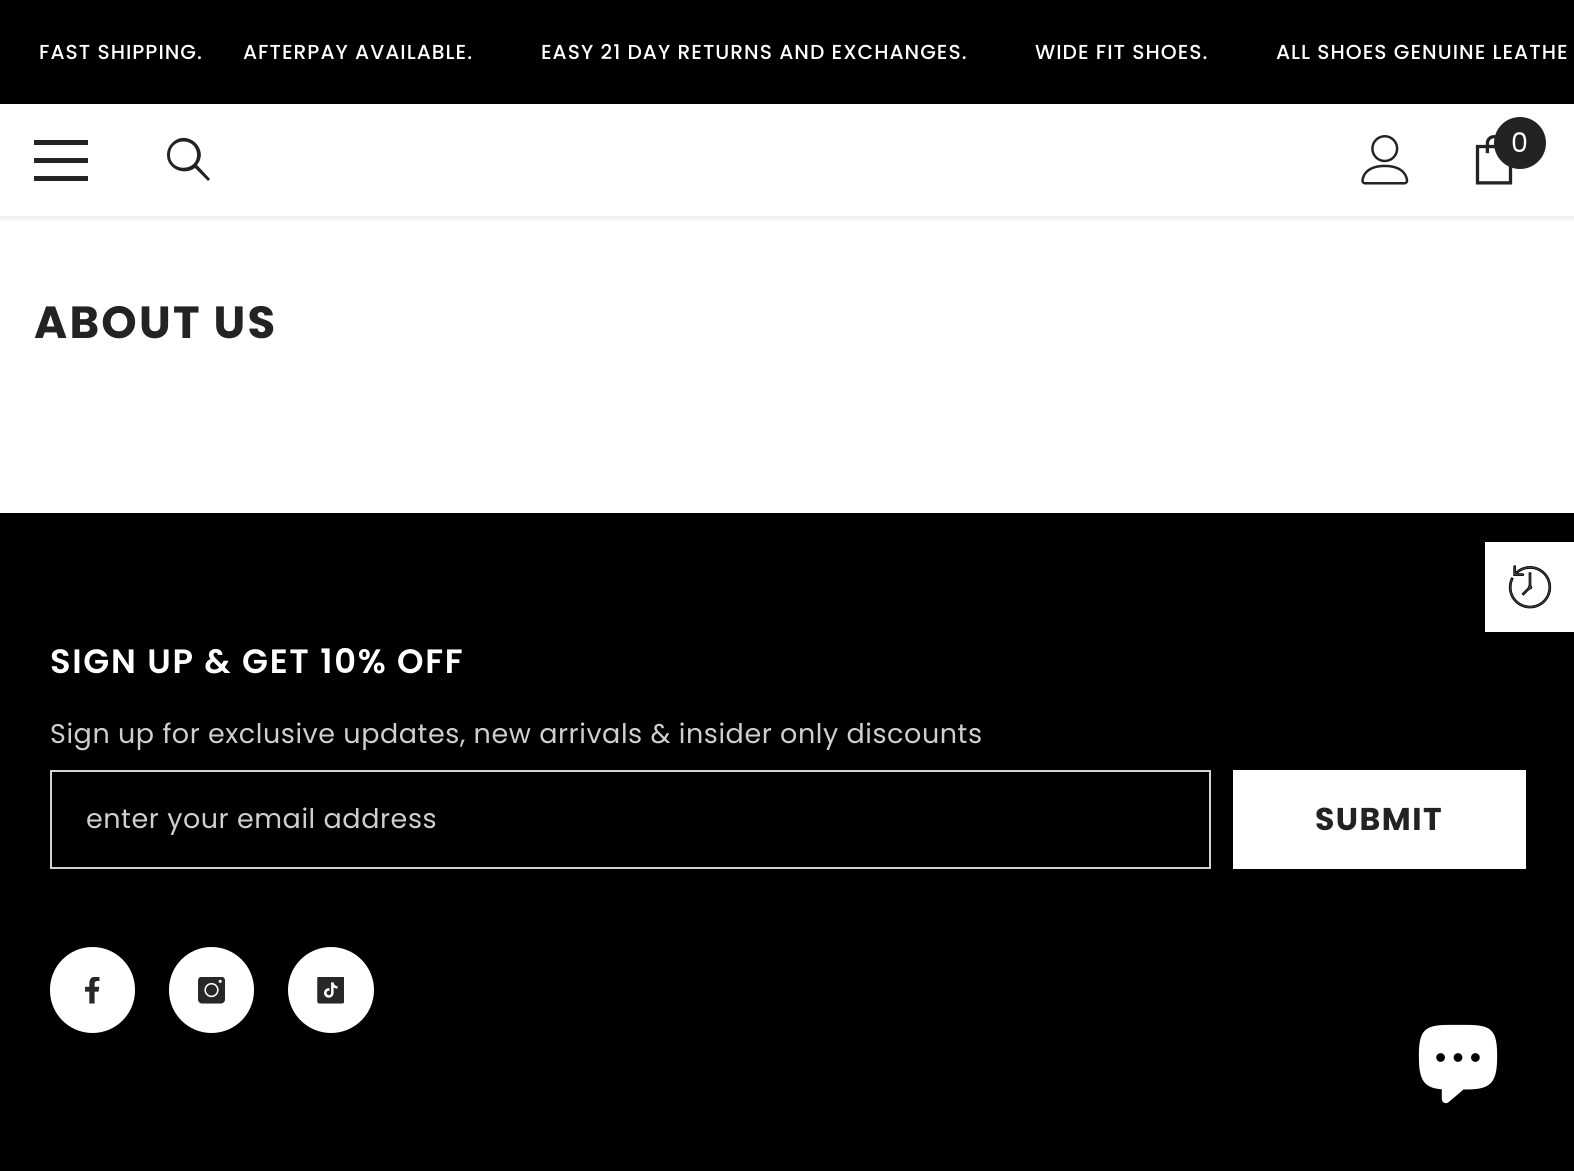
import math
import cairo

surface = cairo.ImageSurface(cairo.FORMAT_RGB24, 1574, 1171)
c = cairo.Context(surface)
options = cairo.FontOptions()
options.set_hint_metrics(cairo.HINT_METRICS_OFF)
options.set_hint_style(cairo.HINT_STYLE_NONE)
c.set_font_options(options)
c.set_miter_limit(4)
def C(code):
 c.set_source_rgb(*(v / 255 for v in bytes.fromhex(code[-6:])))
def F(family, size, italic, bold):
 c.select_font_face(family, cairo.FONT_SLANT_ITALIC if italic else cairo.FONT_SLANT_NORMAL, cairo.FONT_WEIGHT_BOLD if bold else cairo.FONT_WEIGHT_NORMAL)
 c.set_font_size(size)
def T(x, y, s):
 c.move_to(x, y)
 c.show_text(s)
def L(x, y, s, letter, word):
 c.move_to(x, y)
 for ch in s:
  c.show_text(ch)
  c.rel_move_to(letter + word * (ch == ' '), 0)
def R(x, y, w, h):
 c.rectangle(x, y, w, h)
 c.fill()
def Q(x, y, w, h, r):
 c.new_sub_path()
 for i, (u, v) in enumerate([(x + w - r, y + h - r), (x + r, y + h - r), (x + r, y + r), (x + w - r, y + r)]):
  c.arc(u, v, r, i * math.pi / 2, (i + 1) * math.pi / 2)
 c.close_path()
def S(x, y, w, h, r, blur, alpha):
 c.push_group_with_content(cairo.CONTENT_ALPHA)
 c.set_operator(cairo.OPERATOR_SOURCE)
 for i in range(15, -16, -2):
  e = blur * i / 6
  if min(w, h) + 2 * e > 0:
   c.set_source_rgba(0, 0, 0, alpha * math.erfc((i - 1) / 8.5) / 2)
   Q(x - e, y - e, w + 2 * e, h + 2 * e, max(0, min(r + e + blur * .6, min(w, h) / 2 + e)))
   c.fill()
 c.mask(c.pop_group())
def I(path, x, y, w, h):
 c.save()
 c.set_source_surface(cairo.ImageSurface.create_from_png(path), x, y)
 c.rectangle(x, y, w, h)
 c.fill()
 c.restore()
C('ffffff')
c.paint()
C('000000')
R(0,0,1574,104)
F('Poppins Medium',20.25,0,0)
C('ffffff')
L(39,59,'FAST SHIPPING.',1,0)
L(243,59,'AFTERPAY AVAILABLE.',1,0)
L(541,59,'EASY 21 DAY RETURNS AND EXCHANGES.',1,0)
L(1035,59,'WIDE FIT SHOES.',1,0)
L(1276,59,'ALL SHOES GENUINE LEATHE',1,0)
c.save()
c.rectangle(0,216,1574,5)
c.clip()
C('000000')
S(0,106,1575,112,0,3.5,.1)
c.restore()
C('232323')
R(34,158,54,5)
R(34,140,54,5)
R(34,176,54,5)
c.new_path()
c.move_to(167,155)
c.curve_to(167,169,184,176,195,168)
c.line_to(208,181)
c.line_to(210,179)
c.line_to(197,165)
c.curve_to(210,149,187,128,172,143)
c.curve_to(169,146,167,150,167,155)
c.close_path()
c.move_to(170,155)
c.curve_to(170,137,197,137,197,155)
c.curve_to(197,172,170,172,170,155)
c.close_path()
c.fill()
I('1.png',1361,135,48,50)
I('2.png',1475,135,38,50)
c.arc(1520,143,26,0,2 * math.pi)
c.fill()
F('Poppins',27,0,0)
C('ffffff')
T(1511,152,'0')
F('Poppins',45,0,1)
C('232323')
L(34,338,'ABOUT US',2.25,0)
C('000000')
R(0,513,1574,658)
F('Poppins SemiBold',33.75,0,0)
C('ffffff')
L(50,673,'SIGN UP & GET 10% OFF',1.7,0)
F('Poppins',27,0,0)
C('cfcfcf')
L(50,743,'Sign up for exclusive updates, new arrivals & insider only discounts',.55,0)
c.rectangle(51,771,1159,97)
C('d3d3d3')
c.stroke()
C('cfcfcf')
L(86,828,'enter your email address',.55,0)
C('ffffff')
R(1233,770,293,99)
F('Poppins',31.5,0,1)
C('232323')
L(1315,830,'SUBMIT',1.5,0)
C('ffffff')
Q(51,948,83,84,41.5)
c.fill_preserve()
c.stroke()
I('3.png',85,977,15,27)
Q(170,948,83,84,41.5)
c.fill_preserve()
c.stroke()
I('4.png',198,977,27,27)
c.arc(331,990,42,0,2 * math.pi)
c.fill_preserve()
c.stroke()
I('5.png',317,977,27,27)
R(1485,542,89,90)
I('6.png',1508,565,44,44)
I('7.png',1418,1024,80,80)
surface.write_to_png('o.png')
